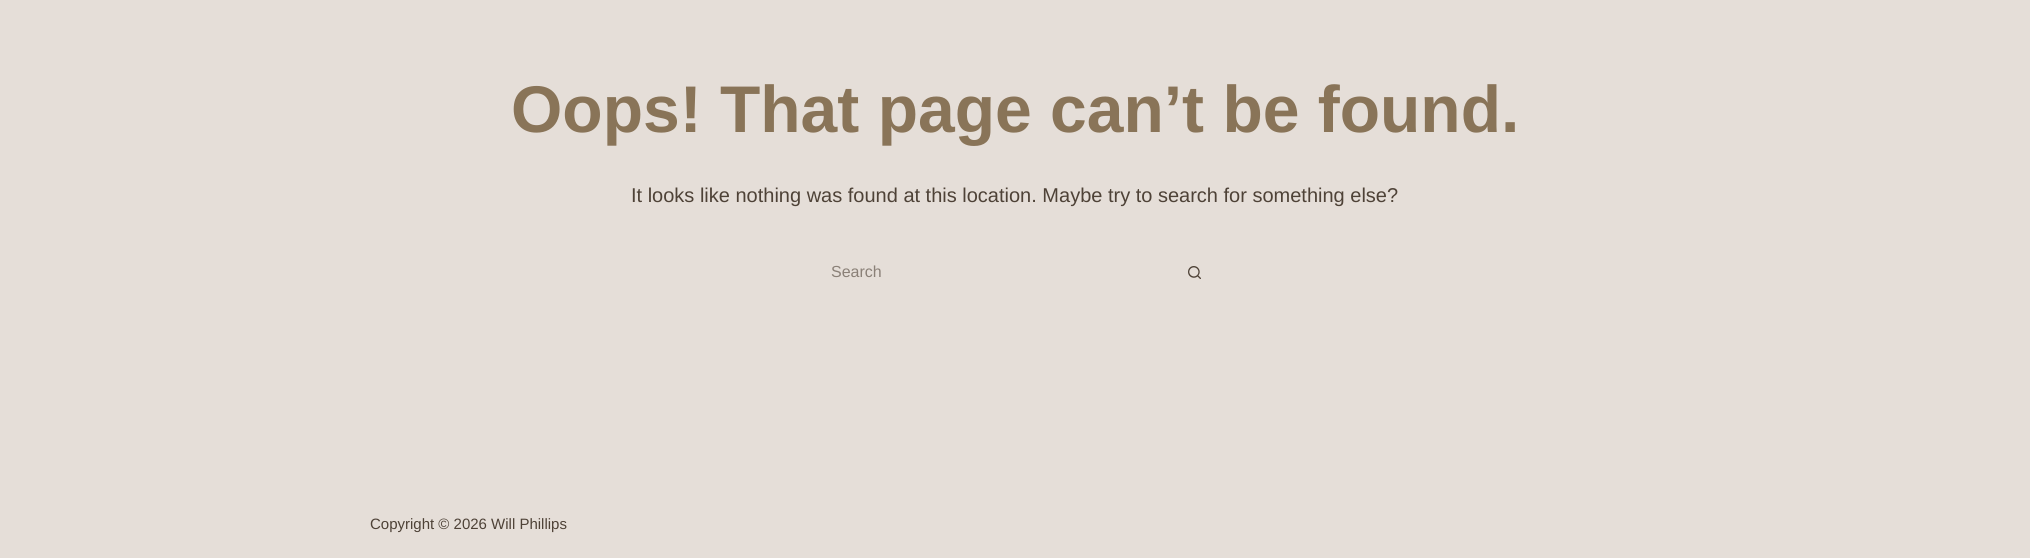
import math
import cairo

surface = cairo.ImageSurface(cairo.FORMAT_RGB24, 2030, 558)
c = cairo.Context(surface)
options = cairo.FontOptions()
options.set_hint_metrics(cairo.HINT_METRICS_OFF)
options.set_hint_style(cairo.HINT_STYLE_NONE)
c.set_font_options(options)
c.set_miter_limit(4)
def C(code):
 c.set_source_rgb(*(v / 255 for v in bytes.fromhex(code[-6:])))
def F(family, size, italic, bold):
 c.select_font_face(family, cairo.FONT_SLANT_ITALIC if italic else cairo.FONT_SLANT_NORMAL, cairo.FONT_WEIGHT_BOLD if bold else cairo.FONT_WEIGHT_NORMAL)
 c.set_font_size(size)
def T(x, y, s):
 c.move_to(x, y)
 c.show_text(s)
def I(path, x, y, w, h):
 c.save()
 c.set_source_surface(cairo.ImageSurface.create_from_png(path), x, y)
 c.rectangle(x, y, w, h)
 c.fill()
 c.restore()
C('e5ded8')
c.paint()
F('Liberation Sans',66,0,1)
C('897458')
T(511,132,'Oops! That page can’t be found.')
F('Liberation Sans',20,0,0)
C('4e4237')
T(631,202,'It looks like nothing was found at this location. Maybe try to search for something else?')
F('Liberation Sans',16,0,0)
C('8a8077')
T(831,277,'Search')
I('1.png',1188,266,13,13)
F('Liberation Sans',15,0,0)
C('4e4237')
T(370,529,'Copyright © 2026 Will Phillips')
surface.write_to_png('o.png')
